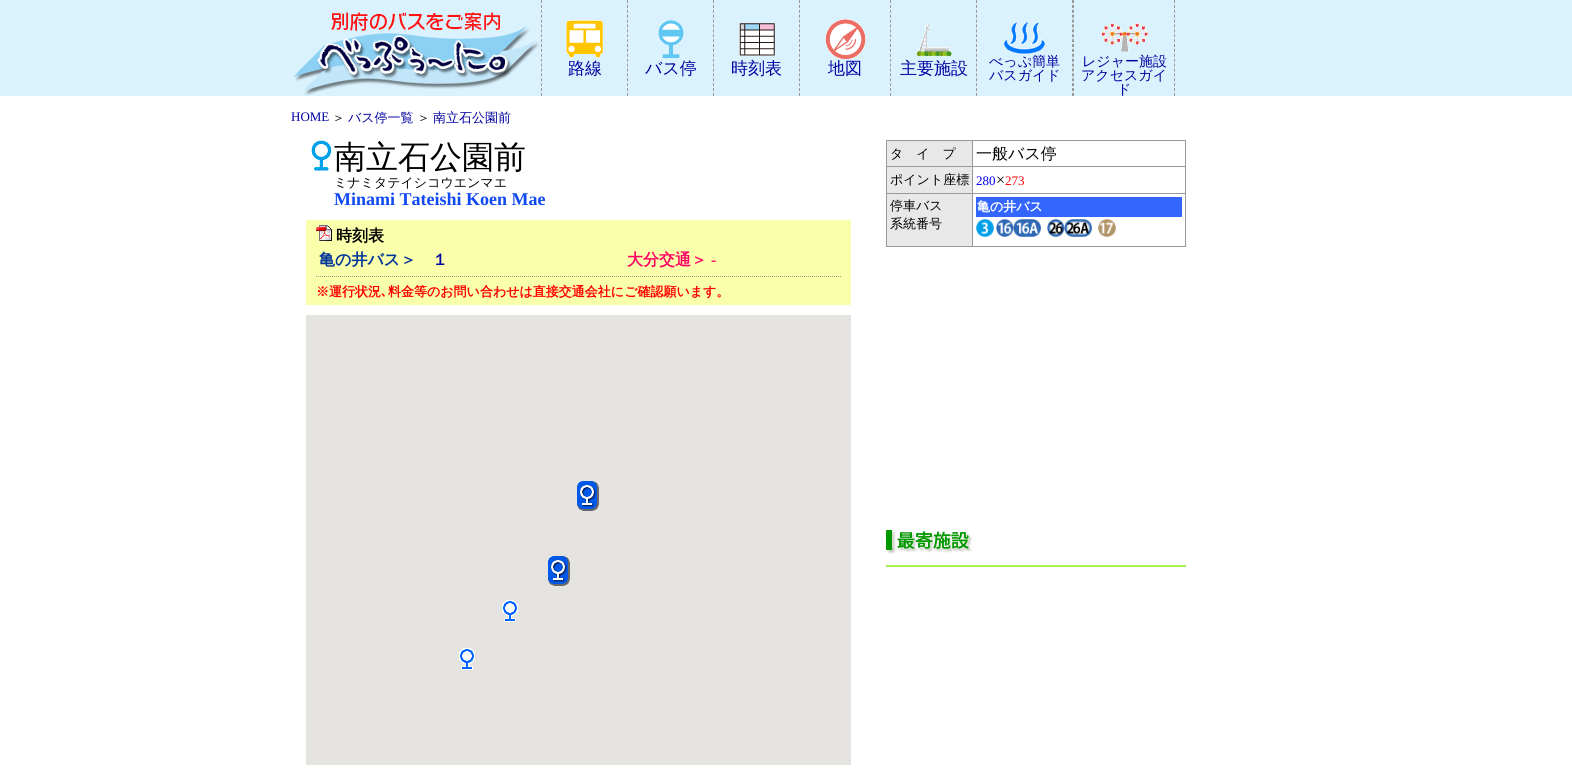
import math
import cairo

surface = cairo.ImageSurface(cairo.FORMAT_RGB24, 1572, 778)
c = cairo.Context(surface)
options = cairo.FontOptions()
options.set_hint_metrics(cairo.HINT_METRICS_OFF)
options.set_hint_style(cairo.HINT_STYLE_NONE)
c.set_font_options(options)
c.set_miter_limit(4)
def C(code):
 c.set_source_rgb(*(v / 255 for v in bytes.fromhex(code[-6:])))
def F(family, size, italic, bold):
 c.select_font_face(family, cairo.FONT_SLANT_ITALIC if italic else cairo.FONT_SLANT_NORMAL, cairo.FONT_WEIGHT_BOLD if bold else cairo.FONT_WEIGHT_NORMAL)
 c.set_font_size(size)
def T(x, y, s):
 c.move_to(x, y)
 c.show_text(s)
def R(x, y, w, h):
 c.rectangle(x, y, w, h)
 c.fill()
def I(path, x, y, w, h):
 c.save()
 c.set_source_surface(cairo.ImageSurface.create_from_png(path), x, y)
 c.rectangle(x, y, w, h)
 c.fill()
 c.restore()
C('ffffff')
c.paint()
C('daf2fe')
R(0,0,1572,96)
c.new_path()
c.move_to(541.5,0)
c.line_to(541.5,96)
C('999999')
c.set_line_width(1)
c.set_dash([3,1.89])
c.stroke()
I('1.png',293,8,247,88)
I('2.png',566,20,37,38)
c.new_path()
c.move_to(627.5,0)
c.line_to(627.5,96)
c.stroke()
F('WenQuanYi Zen Hei Medium',17,0,0)
C('0000a0')
T(568,74,'路線')
I('3.png',658,20,26,39)
c.new_path()
c.move_to(713.5,0)
c.line_to(713.5,96)
C('999999')
c.stroke()
C('0000a0')
T(645,74,'バス停')
I('4.png',739,23,36,33)
c.new_path()
c.move_to(799.5,0)
c.line_to(799.5,96)
C('999999')
c.stroke()
C('0000a0')
T(731,74,'時刻表')
I('5.png',825,19,41,40)
c.new_path()
c.move_to(890.5,0)
c.line_to(890.5,96)
C('999999')
c.stroke()
C('0000a0')
T(828,74,'地図')
I('6.png',916,22,36,35)
c.new_path()
c.move_to(976.5,0)
c.line_to(976.5,96)
C('999999')
c.stroke()
C('0000a0')
T(900,74,'主要施設')
I('7.png',1004,22,41,32)
c.new_path()
c.move_to(1072.5,0)
c.line_to(1072.5,96)
C('999999')
c.stroke()
F('WenQuanYi Zen Hei Medium',14,0,0)
C('0000a0')
T(989,66,'べっぷ簡単')
T(989,80,'バスガイド')
I('8.png',1101,23,47,29)
c.new_path()
c.move_to(1174.5,0)
c.line_to(1174.5,96)
C('999999')
c.stroke()
c.new_path()
c.move_to(1073.5,0)
c.line_to(1073.5,96)
c.stroke()
C('0000a0')
T(1082,66,'レジャー施設')
T(1081,80,'アクセスガイ')
T(1117,94,'ド')
F('Liberation Serif',13,0,0)
T(291,121,'HOME')
F('WenQuanYi Zen Hei Medium',13,0,0)
C('000000')
T(332,122,'＞')
C('0000a0')
T(348,122,'バス停一覧')
C('000000')
T(417,122,'＞')
C('0000a0')
T(433,122,'南立石公園前')
I('9.png',311,140,21,31)
F('WenQuanYi Zen Hei Medium',32,0,0)
C('000000')
T(334,168,'南立石公園前')
F('WenQuanYi Zen Hei Medium',13,0,0)
T(334,187,'ミナミタテイシコウエンマエ')
F('Liberation Serif',18,0,1)
C('0f49f4')
T(334,205,'Minami Tateishi Koen Mae')
C('f9ffaa')
R(306,220,545,85)
I('10.png',316,225,16,16)
F('WenQuanYi Zen Hei',16,0,1)
C('000000')
T(336,241,'時刻表')
C('003399')
T(319,265,'亀の井バス＞')
C('0000a0')
T(432,265,'１')
C('ff0066')
T(627,265,'大分交通＞')
F('Liberation Serif',16,0,1)
T(711,265,'-')
c.new_path()
c.move_to(316,276.5)
c.line_to(841,276.5)
C('999999')
c.set_dash([1,1])
c.stroke()
F('WenQuanYi Zen Hei',13,0,1)
C('ff0000')
T(316,296,'※運行状況')
F('IPAGothic',13,0,1)
T(381,296,'､')
F('WenQuanYi Zen Hei',13,0,1)
T(388,296,'料金等のお問い合わせは直接交通会社にご確認願います。')
C('e5e3df')
R(306,315,545,450)
I('11.png',577,481,22,30)
I('11.png',548,556,22,30)
I('12.png',502,600,16,22)
I('12.png',459,648,16,22)
C('999999')
R(886,140,300,107)
C('e8e8e8')
R(887,141,85,25)
F('WenQuanYi Zen Hei Medium',13,0,0)
C('000000')
T(890,158,'タ　イ　プ')
C('ffffff')
R(973,141,212,25)
F('WenQuanYi Zen Hei Medium',16,0,0)
C('000000')
T(976,159,'一般バス停')
C('e8e8e8')
R(887,167,85,26)
F('WenQuanYi Zen Hei Medium',13,0,0)
C('000000')
T(890,184,'ポイント座標')
C('ffffff')
R(973,167,212,26)
F('Liberation Serif',13,0,0)
C('0000ff')
T(976,185,'280')
F('Liberation Serif',16,0,0)
C('000000')
T(996,185,'×')
F('Liberation Serif',13,0,0)
C('ff0000')
T(1005,185,'273')
C('e8e8e8')
R(887,194,85,52)
F('WenQuanYi Zen Hei Medium',13,0,0)
C('000000')
T(890,210,'停車バス')
T(890,228,'系統番号')
C('ffffff')
R(973,194,212,52)
C('3366ff')
R(976,197,206,20)
F('WenQuanYi Zen Hei',13,0,1)
C('ffffff')
T(977,211,'亀の井バス')
I('13.png',976,219,18,18)
I('14.png',996,219,45,18)
I('15.png',1047,219,45,18)
I('16.png',1098,219,18,18)
I('17.png',886,530,86,24)
C('a9f056')
R(886,565,300,2)
surface.write_to_png('o.png')
